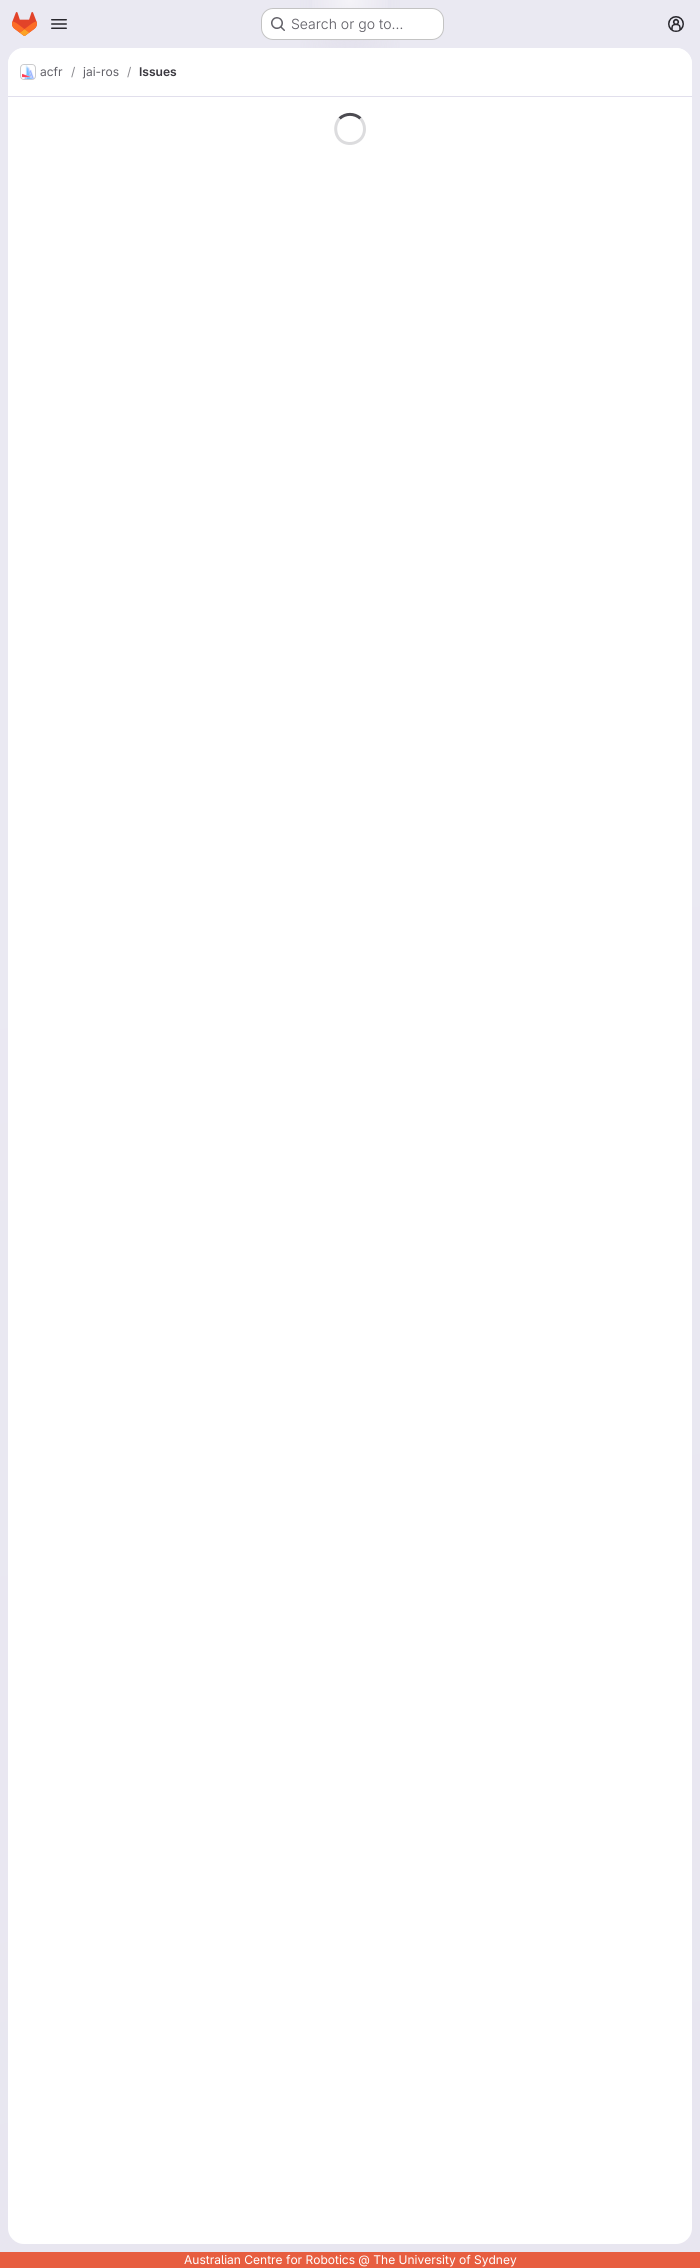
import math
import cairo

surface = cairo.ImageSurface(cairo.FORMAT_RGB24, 700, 2268)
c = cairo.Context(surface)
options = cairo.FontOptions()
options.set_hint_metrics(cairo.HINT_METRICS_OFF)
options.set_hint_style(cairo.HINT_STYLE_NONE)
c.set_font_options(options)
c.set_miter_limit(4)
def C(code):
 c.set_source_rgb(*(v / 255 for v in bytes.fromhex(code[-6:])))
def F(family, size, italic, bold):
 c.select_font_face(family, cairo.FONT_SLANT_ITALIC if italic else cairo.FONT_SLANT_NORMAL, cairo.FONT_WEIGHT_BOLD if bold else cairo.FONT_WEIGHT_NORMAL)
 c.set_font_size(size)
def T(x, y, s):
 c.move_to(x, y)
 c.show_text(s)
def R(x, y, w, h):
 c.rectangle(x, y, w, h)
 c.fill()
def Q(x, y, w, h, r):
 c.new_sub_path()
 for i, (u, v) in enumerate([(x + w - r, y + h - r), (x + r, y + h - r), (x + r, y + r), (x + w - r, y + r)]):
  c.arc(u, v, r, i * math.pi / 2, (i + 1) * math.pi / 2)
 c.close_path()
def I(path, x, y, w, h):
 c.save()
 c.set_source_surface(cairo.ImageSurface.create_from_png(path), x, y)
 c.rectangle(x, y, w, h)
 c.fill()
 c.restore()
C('ffffff')
c.paint()
gradient = cairo.LinearGradient(554,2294,146,-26)
gradient.add_color_stop_rgba(0,0.91,0.902,0.941,1)
gradient.add_color_stop_rgba(.7,0.918,0.914,0.949,1)
c.set_source(gradient)
R(0,0,700,2252)
gradient = cairo.RadialGradient(0,0,0,0,0,1)
gradient.set_matrix(cairo.Matrix(1 / 350, 0, 0, 1 / 2268, -1 * 350 / 350, -1 * 0 / 2268))
gradient.add_color_stop_rgba(0,0.894,0.886,0.929,1)
gradient.add_color_stop_rgba(.2,0.894,0.886,0.929,0)
c.set_source(gradient)
R(300,0,100,48)
gradient = cairo.RadialGradient(0,0,0,0,0,1)
gradient.set_matrix(cairo.Matrix(1 / 350, 0, 0, 1 / 2268, -1 * 350 / 350, -1 * 0 / 2268))
gradient.add_color_stop_rgba(0,0.894,0.886,0.925,1)
gradient.add_color_stop_rgba(.14,0.894,0.886,0.925,0)
c.set_source(gradient)
R(330,15,40,26)
gradient = cairo.RadialGradient(350,0,0,350,0,2295)
gradient.add_color_stop_rgba(0,1,1,1,.6)
gradient.add_color_stop_rgba(.02,1,1,1,0)
c.set_source(gradient)
R(312,0,76,39)
I('1.png',12,12,25,24)
I('2.png',51,19,16,10)
C('ffffff')
Q(261,8,183,32,12)
c.fill()
Q(261.5,8.5,182,31,11.5)
c.set_source_rgba(0.02,0.02,0.024,0.24)
c.set_line_width(1)
c.stroke()
I('3.png',271,17,14,14)
F('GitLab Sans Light',14,0,0)
C('626168')
T(291,29,'Search or go to…')
I('4.png',668,16,16,16)
C('ffffff')
Q(8,48,684,2196,16)
c.fill()
c.new_path()
c.move_to(24,48)
c.line_to(676,48)
c.curve_to(685,48,692,55,692,64)
c.line_to(692,97)
c.line_to(8,97)
c.line_to(8,64)
c.curve_to(8,55,15,48,24,48)
c.close_path()
c.fill()
C('e1dfec')
R(8,96,684,1)
Q(20.5,64.5,15,15,3.5)
C('dcdcde')
c.stroke()
I('5.png',22,65,12,14)
Q(20.5,64.5,15,15,3.5)
c.set_source_rgba(0.02,0.02,0.024,0.08)
c.stroke()
F('GitLab Sans',12,0,0)
C('626168')
T(40,76,'acfr')
C('89888d')
T(71,76,'/')
C('626168')
T(83,76,'jai-ros')
C('89888d')
T(127,76,'/')
F('GitLab Sans SemiBold',12,0,0)
C('3a383f')
T(139,76,'Issues')
c.new_path()
c.move_to(339.5,118.5)
c.curve_to(345.5,113,354.5,113,360.5,118.5)
C('4c4b51')
c.set_line_width(3)
c.stroke()
c.new_path()
c.move_to(360.5,118.5)
c.curve_to(363,121.5,364.5,125,364.5,129)
c.curve_to(364.5,146.5,339,149,336,132)
c.curve_to(335,127,336.5,122,339.5,118.5)
C('dcdcde')
c.stroke()
C('e75e40')
R(0,2252,700,16)
F('GitLab Sans',12,0,0)
C('ffffff')
T(184,2264,'Australian Centre for Robotics @ The University of Sydney')
surface.write_to_png('o.png')
